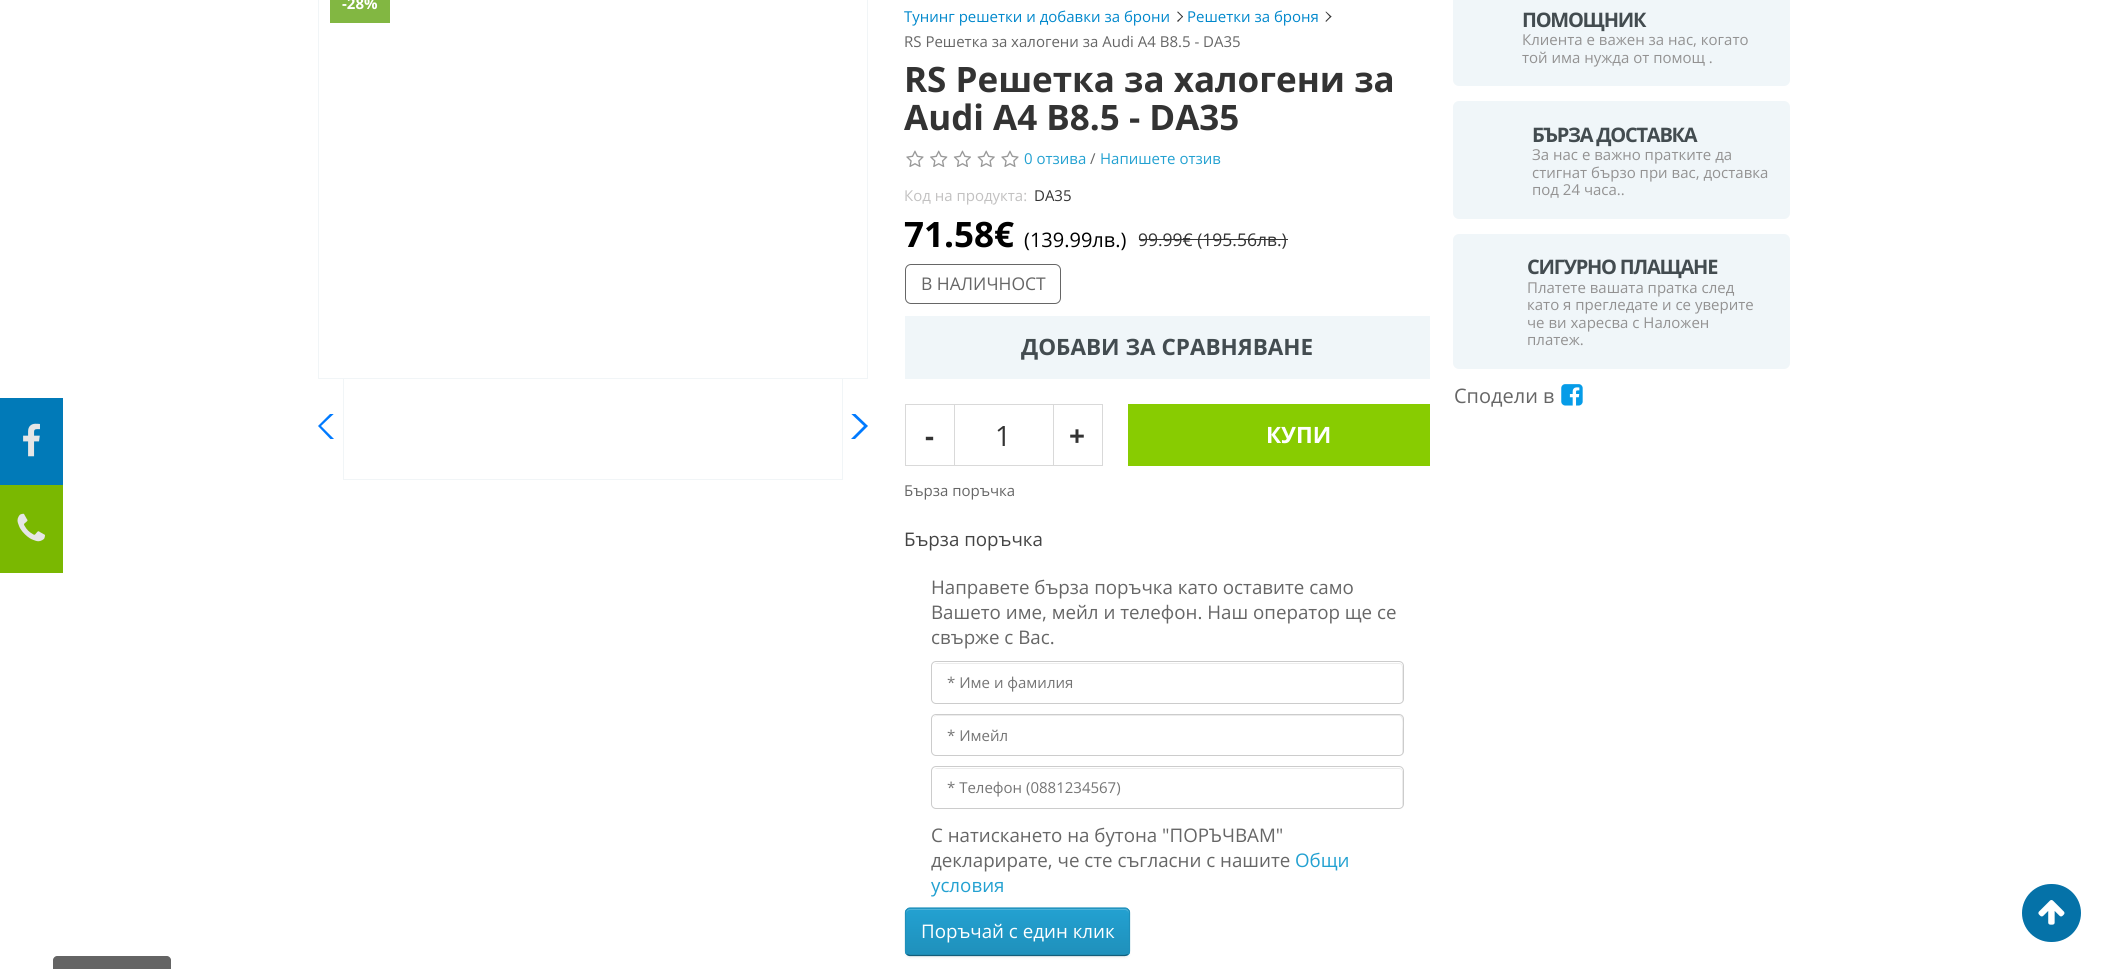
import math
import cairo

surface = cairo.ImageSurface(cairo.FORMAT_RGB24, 2108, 969)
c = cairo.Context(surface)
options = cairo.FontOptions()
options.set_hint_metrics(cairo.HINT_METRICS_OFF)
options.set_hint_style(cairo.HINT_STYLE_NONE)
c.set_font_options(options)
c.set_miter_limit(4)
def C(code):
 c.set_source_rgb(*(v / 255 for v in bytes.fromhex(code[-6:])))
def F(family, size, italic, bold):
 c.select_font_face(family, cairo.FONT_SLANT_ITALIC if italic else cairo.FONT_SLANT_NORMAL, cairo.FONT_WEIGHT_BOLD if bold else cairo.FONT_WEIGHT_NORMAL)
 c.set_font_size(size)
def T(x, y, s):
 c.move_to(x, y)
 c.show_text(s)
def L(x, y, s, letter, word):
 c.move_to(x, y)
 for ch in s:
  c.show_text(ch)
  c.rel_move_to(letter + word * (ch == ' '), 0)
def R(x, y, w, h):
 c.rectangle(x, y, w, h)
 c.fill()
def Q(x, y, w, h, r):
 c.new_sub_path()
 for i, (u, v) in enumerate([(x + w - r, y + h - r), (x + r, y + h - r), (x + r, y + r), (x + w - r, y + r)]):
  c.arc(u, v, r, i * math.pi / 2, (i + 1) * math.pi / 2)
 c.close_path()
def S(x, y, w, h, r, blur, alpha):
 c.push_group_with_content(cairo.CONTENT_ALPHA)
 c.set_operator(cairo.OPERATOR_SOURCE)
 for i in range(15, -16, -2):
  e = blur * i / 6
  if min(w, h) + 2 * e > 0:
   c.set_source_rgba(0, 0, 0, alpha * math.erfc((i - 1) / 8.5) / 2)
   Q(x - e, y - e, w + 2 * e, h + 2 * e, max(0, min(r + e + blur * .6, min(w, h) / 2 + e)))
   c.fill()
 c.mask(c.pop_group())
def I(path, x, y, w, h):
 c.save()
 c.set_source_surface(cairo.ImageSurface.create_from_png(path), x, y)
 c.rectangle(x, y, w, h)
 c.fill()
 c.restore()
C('ffffff')
c.paint()
C('017ab8')
R(0,398,63,87)
I('1.png',23,423,17,34)
C('7ab801')
R(0,485,63,88)
I('2.png',17,513,28,29)
c.rectangle(318.5,-.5,549,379)
C('f1f5f7')
c.set_line_width(1)
c.stroke()
c.rectangle(343.5,378.5,499,101)
c.stroke()
c.save()
c.rectangle(318,414,25,25)
c.clip()
C('007aff')
c.new_path()
c.move_to(318,426)
c.line_to(338,406)
c.line_to(340,408)
c.line_to(321,426)
c.line_to(340,445)
c.line_to(338,447)
c.close_path()
c.fill()
c.restore()
c.save()
c.rectangle(843,414,25,25)
c.clip()
C('007aff')
c.new_path()
c.move_to(868,426)
c.line_to(847,447)
c.line_to(845,445)
c.line_to(864,426)
c.line_to(845,408)
c.line_to(847,406)
c.close_path()
c.fill()
c.restore()
C('82b742')
R(330,0,60,23)
F('Open Sans',15,0,1)
C('ffffff')
T(342,9,'-28%')
F('Open Sans',15,0,0)
C('0188cc')
T(904,22,'Тунинг решетки и добавки за брони')
C('333333')
c.new_path()
c.move_to(1177,12)
c.line_to(1178,11.5)
c.line_to(1183,16.5)
c.line_to(1182.5,17.5)
c.close_path()
c.fill()
c.new_path()
c.move_to(1177,21)
c.line_to(1182.5,16)
c.line_to(1183,16.5)
c.line_to(1178,22)
c.close_path()
c.fill()
C('0188cc')
T(1187,22,'Решетки за броня')
C('333333')
c.new_path()
c.move_to(1325.5,12)
c.line_to(1326,11.5)
c.line_to(1331.5,16.5)
c.line_to(1330.5,17.5)
c.close_path()
c.fill()
c.new_path()
c.move_to(1325.5,21)
c.line_to(1330.5,16)
c.line_to(1331.5,16.5)
c.line_to(1326,22)
c.close_path()
c.fill()
C('666666')
T(904,47,'RS Решетка за халогени за Audi A4 B8.5 - DA35')
F('Open Sans',35,0,1)
C('333333')
T(904,92,'RS Решетка за халогени за')
T(904,130,'Audi A4 B8.5 - DA35')
I('3.png',906,150,18,17)
I('4.png',930,150,18,17)
I('5.png',953,150,18,17)
I('6.png',977,150,18,17)
I('3.png',1001,150,18,17)
F('Open Sans',15,0,0)
C('23a1d1')
T(1024,164,'0 отзива')
C('666666')
T(1090,164,'/')
C('23a1d1')
T(1100,164,'Напишете отзив')
C('c2c1c1')
T(904,201,'Код на продукта:')
C('333333')
T(1034,201,'DA35')
F('Open Sans',35,0,1)
C('000000')
T(904,247,'71.58€')
F('Open Sans',20,0,0)
T(1024,247,'(139.99лв.)')
F('Open Sans',17.5,0,0)
C('333333')
T(1138,246,'99.99€ (195.56лв.)')
R(1139,239,149,1)
Q(905.5,264.5,155,39,5.5)
C('666666')
c.stroke()
T(921,290,'В НАЛИЧНОСТ')
C('f0f6f9')
R(905,316,525,63)
F('Open Sans',22.5,0,1)
C('434c50')
T(1021,355,'ДОБАВИ ЗА СРАВНЯВАНЕ')
c.rectangle(905.5,404.5,49,61)
C('d9d9d9')
c.stroke()
F('Open Sans',28,0,1)
C('333333')
T(925,446,'-')
C('d9d9d9')
R(955,404,98,1)
R(955,465,98,1)
F('Open Sans',28,0,0)
C('333333')
T(995,446,'1')
c.rectangle(1053.5,404.5,49,61)
C('d9d9d9')
c.stroke()
F('Open Sans',28,0,1)
C('333333')
T(1069,446,'+')
C('88cc01')
R(1128,404,302,62)
F('Open Sans',22.5,0,1)
C('ffffff')
T(1266,443,'КУПИ')
F('Open Sans',15,0,0)
C('666666')
T(904,496,'Бърза поръчка')
F('Open Sans',18.75,0,0)
C('444444')
T(904,546,'Бърза поръчка')
C('666666')
T(931,594,'Направете бърза поръчка като оставите само')
T(931,619,'Вашето име, мейл и телефон. Наш оператор ще се')
T(931,644,'свърже с Вас.')
C('ececec')
c.new_path()
c.move_to(936,664)
c.line_to(1399,664)
c.curve_to(1401,664,1402,665,1402,668)
c.line_to(1402,702)
c.curve_to(1402,701,1403,700,1403,699)
c.line_to(1403,667)
c.curve_to(1403,665,1401,663,1399,663)
c.line_to(937,663)
c.curve_to(936,663,935,664,934,664)
c.close_path()
c.fill()
Q(931.5,661.5,472,42,4.5)
C('cccccc')
c.stroke()
F('Open Sans',15,0,0)
C('757575')
T(947,688,'* Име и фамилия')
C('ececec')
c.new_path()
c.move_to(936,716)
c.line_to(1399,716)
c.curve_to(1404,716,1402,729,1402,731)
c.line_to(1402,754)
c.curve_to(1403,753,1403,752,1403,751)
c.line_to(1403,719)
c.curve_to(1403,717,1401,715,1399,715)
c.line_to(937,715)
c.curve_to(936,715,934,716,934,717)
c.close_path()
c.fill()
Q(931.5,714.5,472,41,4.5)
C('cccccc')
c.stroke()
C('757575')
T(947,741,'* Имейл')
C('ececec')
c.new_path()
c.move_to(936,769)
c.line_to(1399,769)
c.curve_to(1401,769,1402,770,1402,772)
c.line_to(1402,807)
c.curve_to(1402,806,1403,805,1403,804)
c.line_to(1403,772)
c.curve_to(1403,770,1401,768,1399,768)
c.line_to(937,768)
c.curve_to(936,768,935,769,934,769)
c.close_path()
c.fill()
Q(931.5,766.5,472,42,4.5)
C('cccccc')
c.stroke()
C('757575')
T(947,793,'* Телефон (0881234567)')
F('Open Sans',18.75,0,0)
C('666666')
T(931,842,'С натискането на бутона "ПОРЪЧВАМ"')
T(931,867,'декларирате, че сте съгласни с нашите')
C('23a1d1')
T(1295,867,'Общи')
T(931,892,'условия')
C('000000')
S(905,909,225,49,5,1,.05)
C('229ac8')
Q(905,908,225,48,5)
c.fill()
c.save()
Q(905,908,225,48,5)
c.clip()
gradient = cairo.LinearGradient(1018,909,1018,955)
gradient.add_color_stop_rgba(0,0.137,0.631,0.82,1)
gradient.add_color_stop_rgba(1,0.122,0.565,0.733,1)
c.set_source(gradient)
R(905,909,225,46)
c.restore()
C('4fb4da')
c.new_path()
c.move_to(910,910)
c.line_to(1125,910)
c.curve_to(1127,910,1129,912,1129,914)
c.curve_to(1129,911,1128,909,1125,909)
c.line_to(910,909)
c.curve_to(907,909,906,911,906,914)
c.curve_to(906,912,908,910,910,910)
c.close_path()
c.fill()
c.new_path()
c.move_to(1128,954.5)
c.line_to(1125,955.5)
c.line_to(909.5,955.5)
c.line_to(907,954.5)
C('145e7a')
c.set_line_width(1.2)
c.stroke()
c.new_path()
c.move_to(907,954.5)
c.curve_to(906,953.5,905.5,952.5,905.5,951)
c.line_to(905.5,912.5)
c.curve_to(905.5,911.5,906,910,907,909.5)
c.curve_to(907.5,908.5,909,908,910,908)
c.line_to(1125,908)
c.curve_to(1126,908,1127.5,908.5,1128,909.5)
c.curve_to(1129,910,1129.5,911.5,1129.5,912.5)
c.line_to(1129.5,951)
c.curve_to(1129.5,952.5,1129,953.5,1128,954.5)
C('1f90bb')
c.stroke()
C('ffffff')
T(921,938,'Поръчай с един клик')
C('f0f6f9')
Q(1453,-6,337,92,6)
c.fill()
F('Open Sans',20,0,1)
C('434c50')
L(1522,27,'ПОМОЩНИК',-1.25,0)
F('Open Sans',15,0,0)
C('939292')
T(1522,45,'Клиента е важен за нас, когато')
T(1522,63,'той има нужда от помощ .')
C('f0f6f9')
Q(1453,101,337,118,6)
c.fill()
F('Open Sans',20,0,1)
C('434c50')
L(1532,142,'БЪРЗА ДОСТАВКА',-1.25,0)
F('Open Sans',15,0,0)
C('939292')
T(1532,160,'За нас е важно пратките да')
T(1532,178,'стигнат бързо при вас, доставка')
T(1532,195,'под 24 часа..')
C('f0f6f9')
Q(1453,234,337,135,6)
c.fill()
F('Open Sans',20,0,1)
C('434c50')
L(1527,274,'СИГУРНО ПЛАЩАНЕ',-1.25,0)
F('Open Sans',15,0,0)
C('939292')
T(1527,293,'Платете вашата пратка след')
T(1527,310,'като я прегледате и се уверите')
T(1527,328,'че ви харесва с Наложен')
T(1527,345,'платеж.')
F('Open Sans',20,0,0)
C('666666')
T(1454,403,'Сподели в')
I('7.png',1561,384,22,22)
C('0572a8')
Q(2020.5,882.5,62,61,30.5)
c.fill_preserve()
C('ffffff')
c.set_line_width(3)
c.stroke()
I('8.png',2038,900,27,25)
C('646464')
c.new_path()
c.move_to(57,956)
c.line_to(167,956)
c.curve_to(169,956,171,958,171,960)
c.line_to(171,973)
c.line_to(53,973)
c.line_to(53,960)
c.curve_to(53,958,55,956,57,956)
c.close_path()
c.fill()
surface.write_to_png('o.png')
